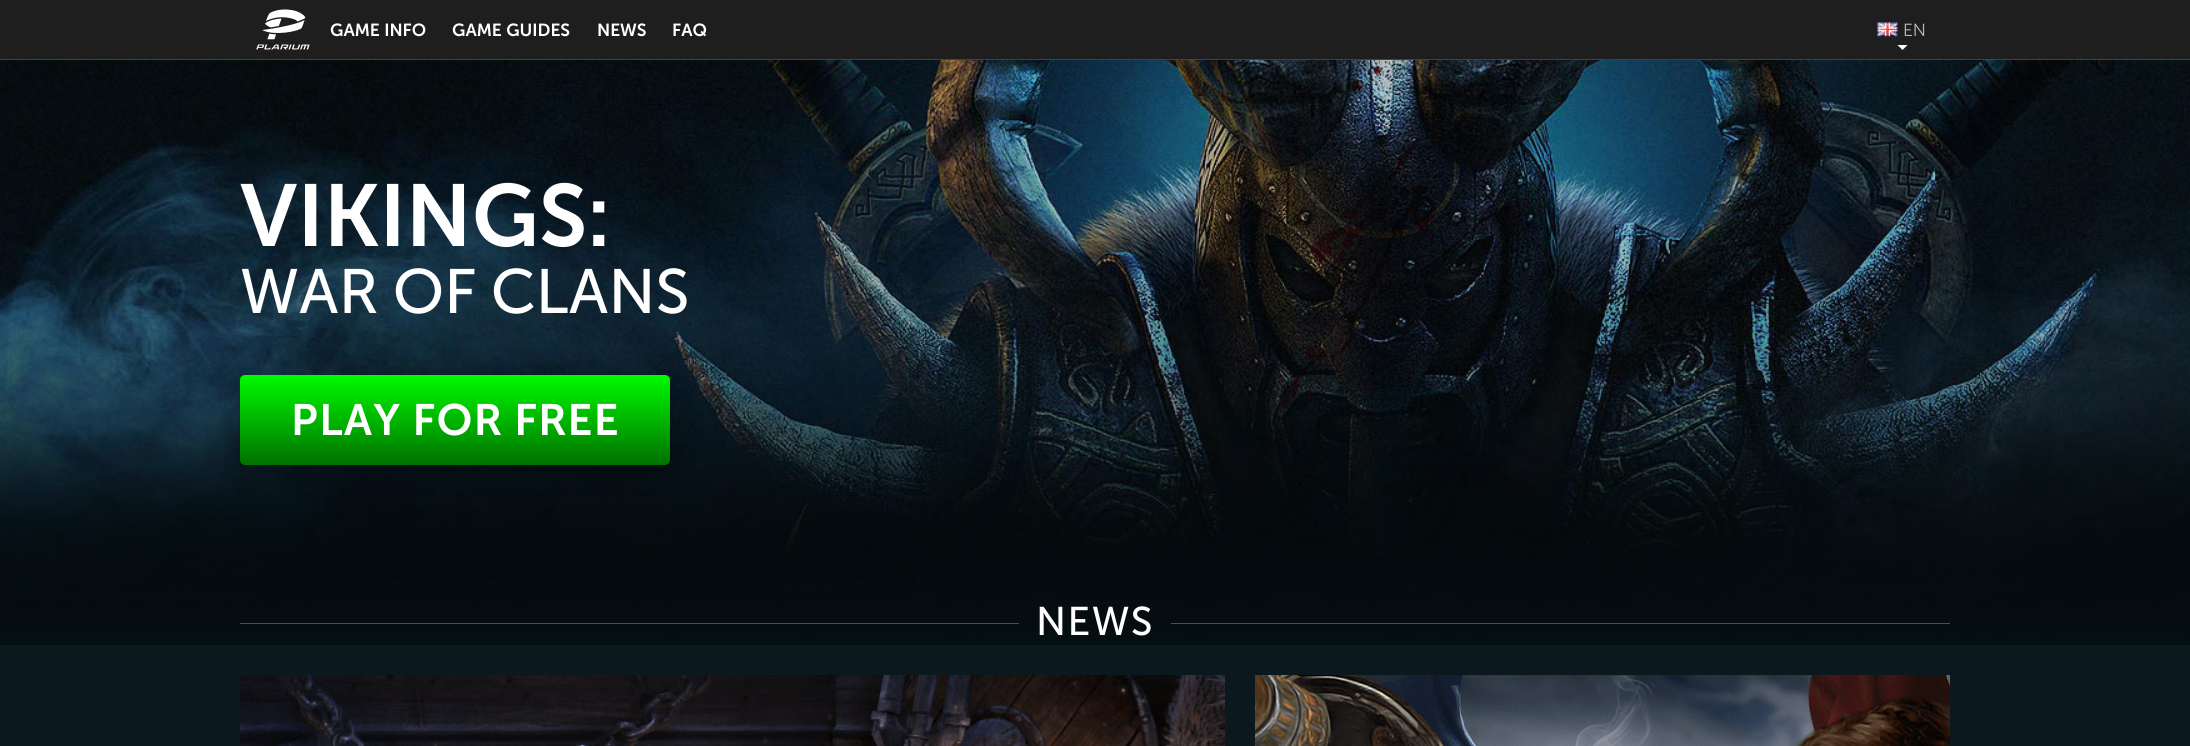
import math
import cairo

surface = cairo.ImageSurface(cairo.FORMAT_RGB24, 2190, 746)
c = cairo.Context(surface)
options = cairo.FontOptions()
options.set_hint_metrics(cairo.HINT_METRICS_OFF)
options.set_hint_style(cairo.HINT_STYLE_NONE)
c.set_font_options(options)
c.set_miter_limit(4)
def C(code):
 c.set_source_rgb(*(v / 255 for v in bytes.fromhex(code[-6:])))
def F(family, size, italic, bold):
 c.select_font_face(family, cairo.FONT_SLANT_ITALIC if italic else cairo.FONT_SLANT_NORMAL, cairo.FONT_WEIGHT_BOLD if bold else cairo.FONT_WEIGHT_NORMAL)
 c.set_font_size(size)
def T(x, y, s):
 c.move_to(x, y)
 c.show_text(s)
def L(x, y, s, letter, word):
 c.move_to(x, y)
 for ch in s:
  c.show_text(ch)
  c.rel_move_to(letter + word * (ch == ' '), 0)
def R(x, y, w, h):
 c.rectangle(x, y, w, h)
 c.fill()
def Q(x, y, w, h, r):
 c.new_sub_path()
 for i, (u, v) in enumerate([(x + w - r, y + h - r), (x + r, y + h - r), (x + r, y + r), (x + w - r, y + r)]):
  c.arc(u, v, r, i * math.pi / 2, (i + 1) * math.pi / 2)
 c.close_path()
def S(x, y, w, h, r, blur, alpha):
 c.push_group_with_content(cairo.CONTENT_ALPHA)
 c.set_operator(cairo.OPERATOR_SOURCE)
 for i in range(15, -16, -2):
  e = blur * i / 6
  if min(w, h) + 2 * e > 0:
   c.set_source_rgba(0, 0, 0, alpha * math.erfc((i - 1) / 8.5) / 2)
   Q(x - e, y - e, w + 2 * e, h + 2 * e, max(0, min(r + e + blur * .6, min(w, h) / 2 + e)))
   c.fill()
 c.mask(c.pop_group())
def I(path, x, y, w, h):
 c.save()
 c.set_source_surface(cairo.ImageSurface.create_from_png(path), x, y)
 c.rectangle(x, y, w, h)
 c.fill()
 c.restore()
C('ffffff')
c.paint()
I('1.png',0,60,2190,686)
C('1e1e1e')
R(0,0,2190,59)
C('414141')
R(0,59,2190,1)
I('2.png',256,9,54,41)
F('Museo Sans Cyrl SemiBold',17.5,0,0)
C('ffffff')
T(330,36,'GAME INFO')
T(452,36,'GAME GUIDES')
T(597,36,'NEWS')
T(672,36,'FAQ')
I('3.png',1877,22,21,15)
F('Museo Sans Cyrl Light',17.5,0,0)
C('bbbbbb')
T(1903,36,'EN')
C('ffffff')
c.new_path()
c.move_to(1897.5,45)
c.line_to(1907.5,45)
c.line_to(1902.5,50)
c.close_path()
c.fill()
F('Museo Sans Cyrl SemiBold',87.5,0,0)
T(240,246,'VIKINGS:')
F('Museo Sans Cyrl',62.5,0,0)
L(240,313,'WAR OF CLANS',0,-1)
C('000000')
S(240,383,430,90,5,19,.4)
C('00fa00')
Q(240,375,430,90,5)
c.fill()
gradient = cairo.LinearGradient(455,375,455,465)
gradient.add_color_stop_rgba(0,0,0,0,0)
gradient.add_color_stop_rgba(1,0,0,0,.55)
c.set_source(gradient)
R(240,379,430,86)
F('Museo Sans Cyrl SemiBold',43.75,0,0)
C('ffffff')
L(291,435,'PLAY FOR FREE',1.25,-1)
C('49504e')
R(240,623,779,1)
F('Museo Sans Cyrl',40,0,0)
C('ffffff')
L(1036,635,'NEWS',1.5,0)
C('49504e')
R(1171,623,779,1)
I('4.png',240,675,985,71)
I('5.png',1255,675,695,71)
surface.write_to_png('o.png')
